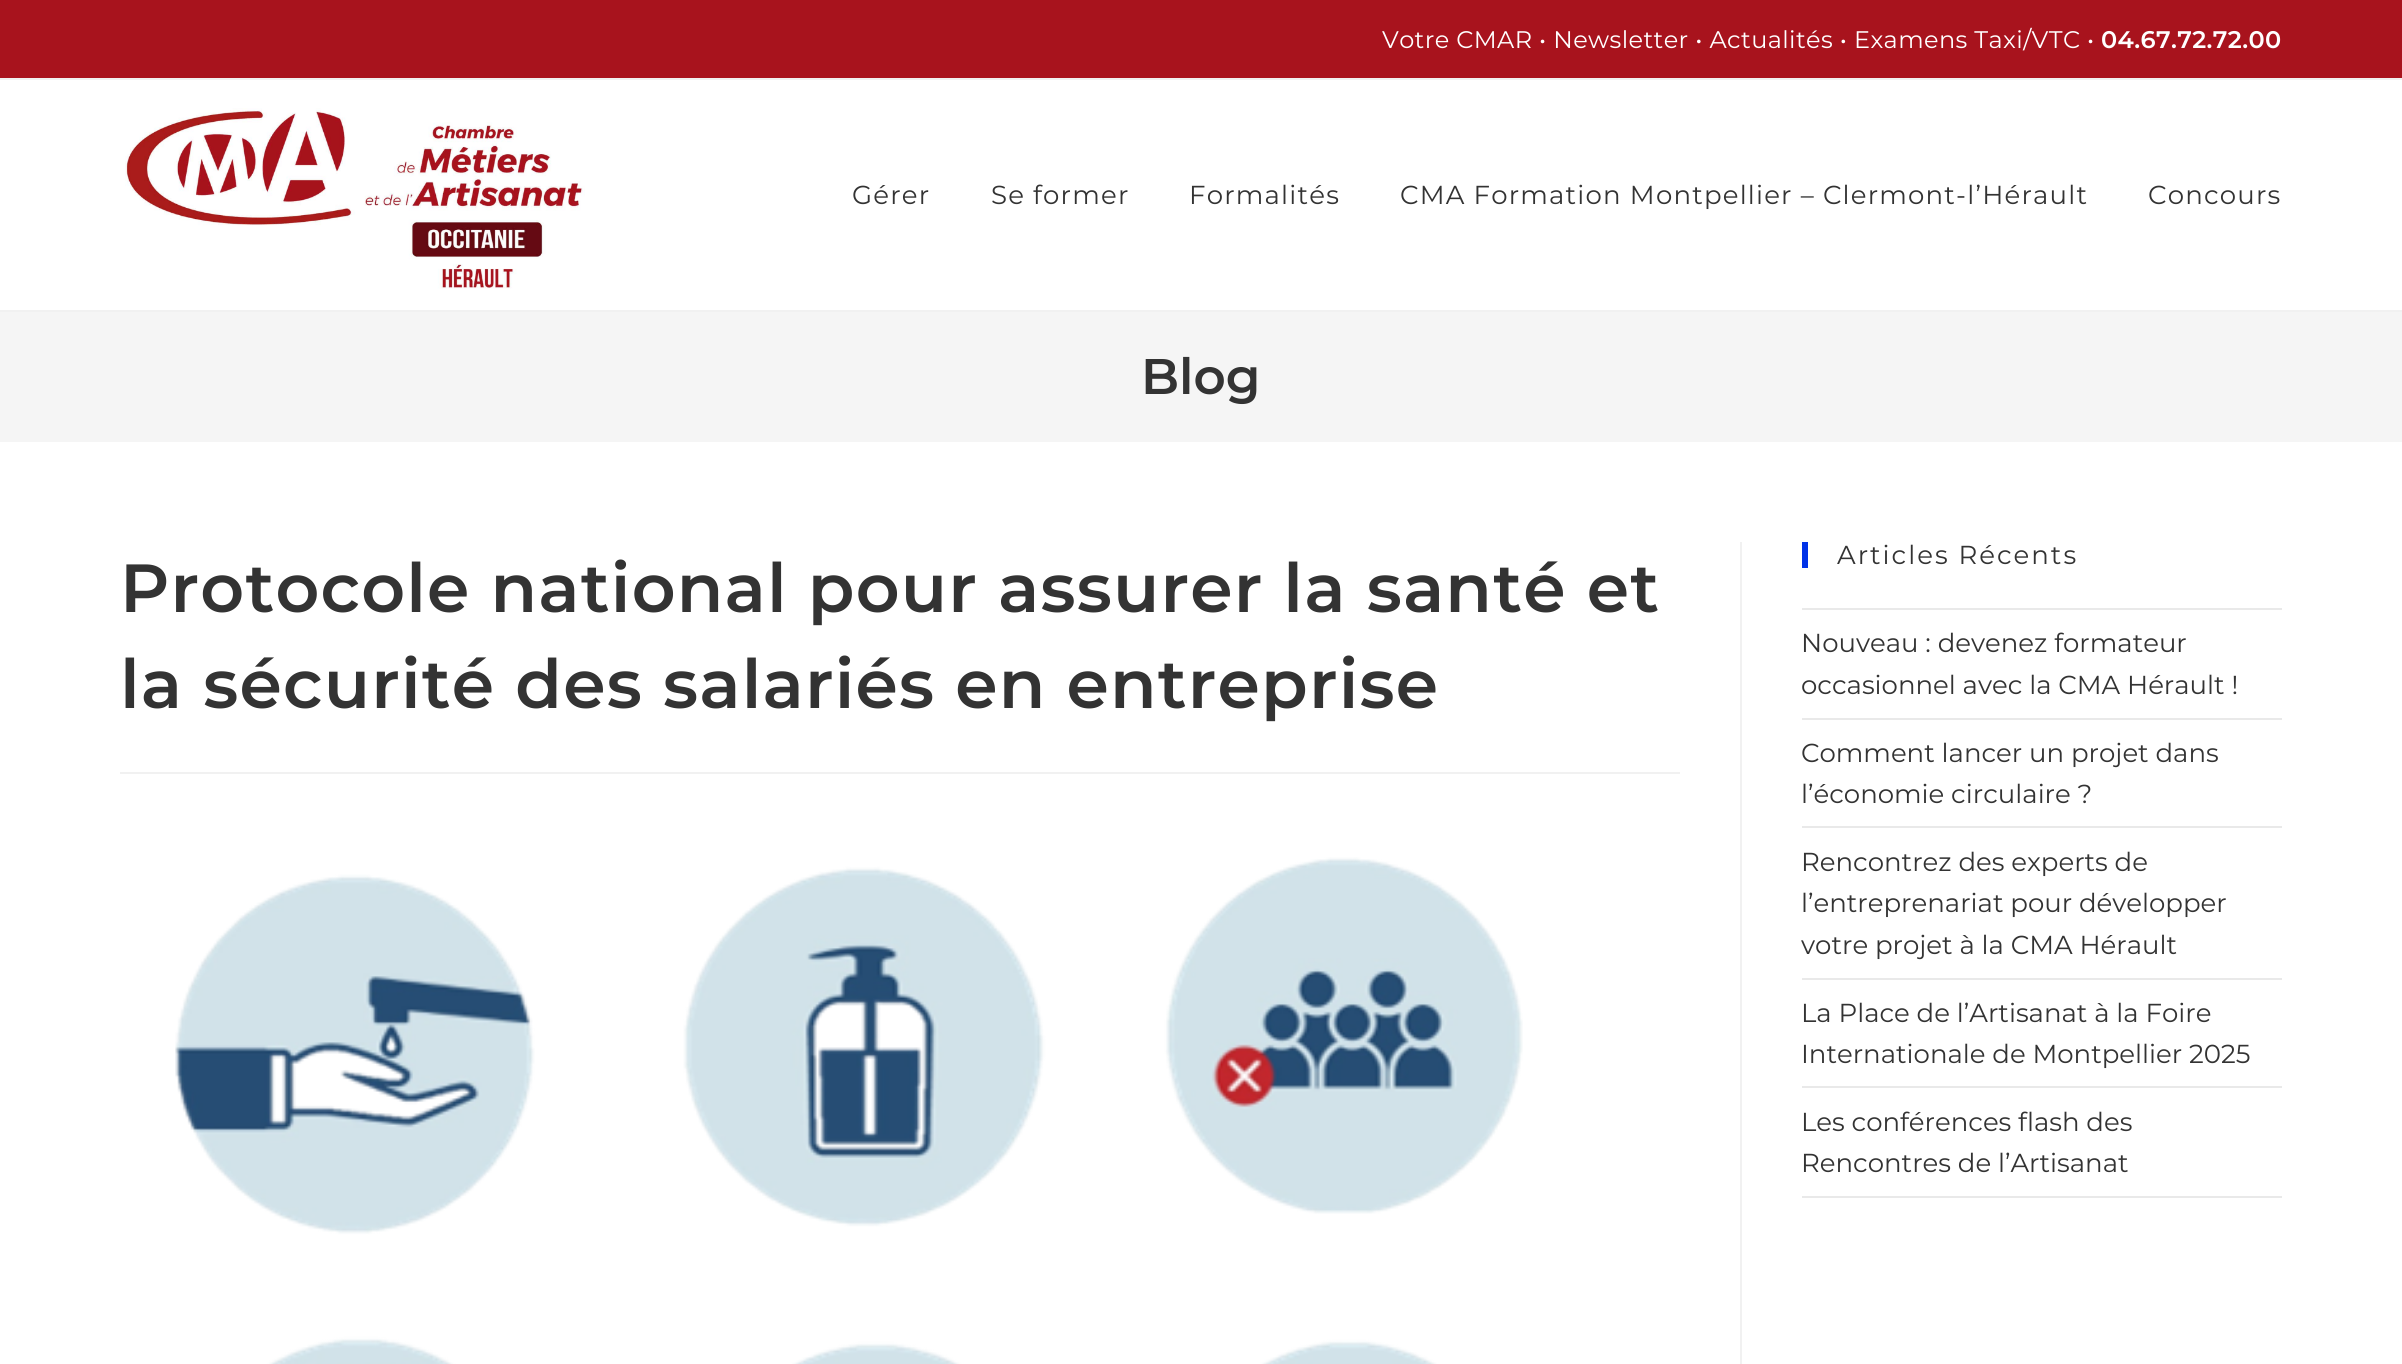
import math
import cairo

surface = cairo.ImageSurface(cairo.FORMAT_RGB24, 2402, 1364)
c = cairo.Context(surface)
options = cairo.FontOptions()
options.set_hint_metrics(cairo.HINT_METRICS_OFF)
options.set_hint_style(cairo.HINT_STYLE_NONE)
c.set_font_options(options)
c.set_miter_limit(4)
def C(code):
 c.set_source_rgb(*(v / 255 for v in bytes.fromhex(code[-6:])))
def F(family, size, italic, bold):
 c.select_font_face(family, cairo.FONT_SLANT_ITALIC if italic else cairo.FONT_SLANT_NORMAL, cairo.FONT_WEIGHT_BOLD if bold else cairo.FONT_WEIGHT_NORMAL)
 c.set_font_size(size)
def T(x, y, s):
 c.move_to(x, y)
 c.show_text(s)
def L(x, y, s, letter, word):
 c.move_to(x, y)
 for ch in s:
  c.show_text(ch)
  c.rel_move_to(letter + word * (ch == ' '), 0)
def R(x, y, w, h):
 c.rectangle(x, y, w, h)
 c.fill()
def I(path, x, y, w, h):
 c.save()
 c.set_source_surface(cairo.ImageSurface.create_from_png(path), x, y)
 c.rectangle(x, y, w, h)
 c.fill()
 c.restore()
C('ffffff')
c.paint()
C('a8131d')
R(0,0,2402,78)
C('f1f1f1')
R(0,78,2402,2)
F('Montserrat',24,0,0)
C('ffffff')
L(1382,48,'Votre CMAR • Newsletter • Actualités • Examens Taxi/VTC •',.4,0)
F('Montserrat SemiBold',24,0,0)
L(2101,48,'04.67.72.72.00',.4,0)
C('f1f1f1')
R(0,310,2402,2)
I('1.png',125,108,460,181)
F('Montserrat',26,0,0)
C('333333')
L(852,204,'Gérer',1.2,0)
L(991,204,'Se former',1.2,0)
L(1189,204,'Formalités',1.2,0)
L(1400,204,'CMA Formation Montpellier – Clermont-l’Hérault',1.2,0)
L(2148,204,'Concours',1.2,0)
C('f5f5f5')
R(0,312,2402,130)
F('Montserrat SemiBold',50,0,0)
C('333333')
T(1141,394,'Blog')
C('f1f1f1')
R(1740,542,2,822)
R(120,772,1560,2)
F('Montserrat SemiBold',68,0,0)
C('333333')
L(120,612,'Protocole national pour assurer la santé et',1.2,0)
L(120,708,'la sécurité des salariés en entreprise',1.2,0)
I('2.png',175,857,1348,507)
C('0032e8')
R(1802,542,6,26)
F('Montserrat',26,0,0)
C('333333')
L(1837,564,'Articles Récents',2,0)
C('e9e9e9')
R(1802,608,480,2)
R(1802,718,480,2)
C('333333')
T(1801,652,'Nouveau : devenez formateur')
T(1801,694,'occasionnel avec la CMA Hérault !')
C('e9e9e9')
R(1802,826,480,2)
C('333333')
T(1801,762,'Comment lancer un projet dans')
T(1801,803,'l’économie circulaire ?')
C('e9e9e9')
R(1802,978,480,2)
C('333333')
T(1801,871,'Rencontrez des experts de')
T(1801,912,'l’entreprenariat pour développer')
T(1801,954,'votre projet à la CMA Hérault')
C('e9e9e9')
R(1802,1086,480,2)
C('333333')
T(1801,1022,'La Place de l’Artisanat à la Foire')
T(1801,1063,'Internationale de Montpellier 2025')
C('e9e9e9')
R(1802,1196,480,2)
C('333333')
T(1801,1131,'Les conférences flash des')
T(1801,1172,'Rencontres de l’Artisanat')
surface.write_to_png('o.png')
